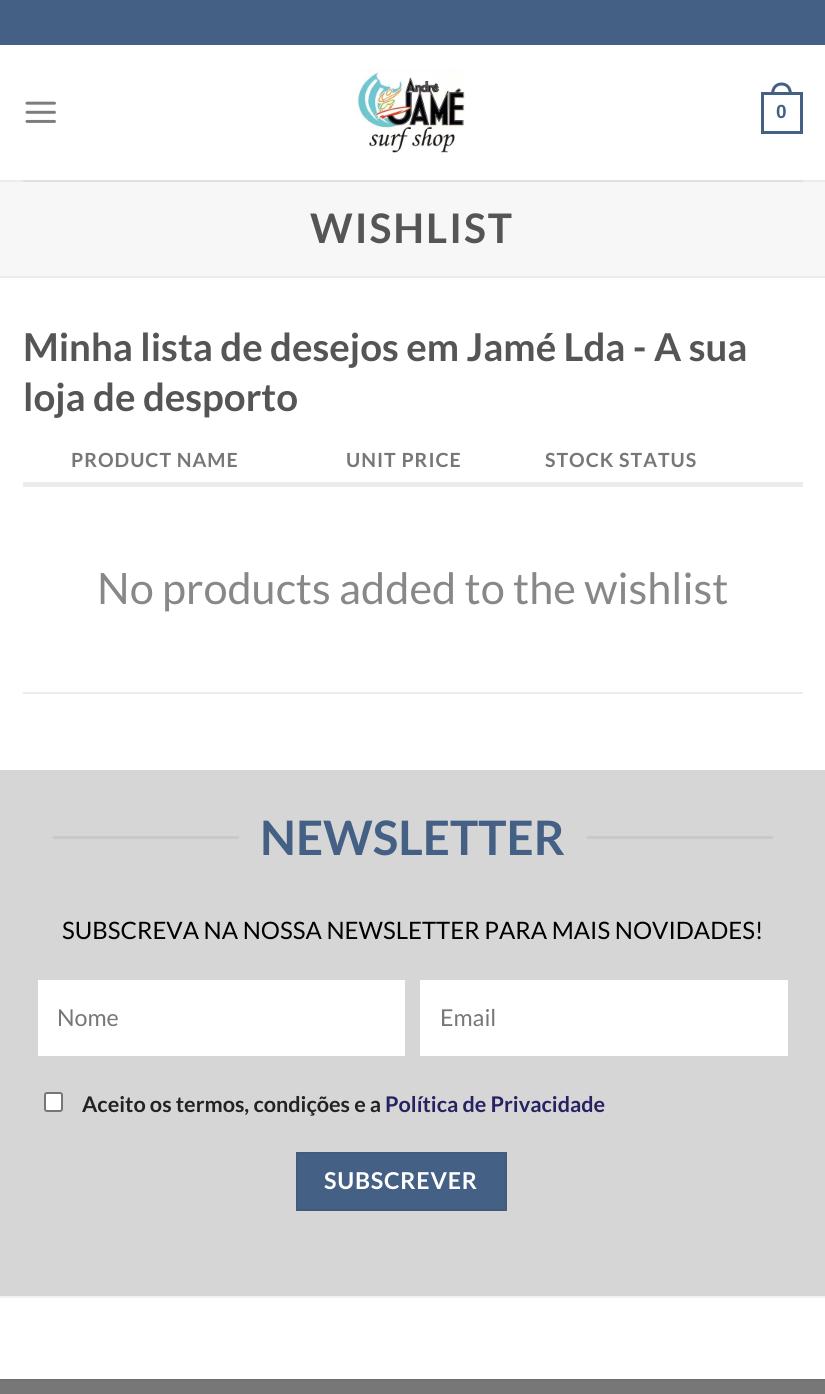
import math
import cairo

surface = cairo.ImageSurface(cairo.FORMAT_RGB24, 825, 1394)
c = cairo.Context(surface)
options = cairo.FontOptions()
options.set_hint_metrics(cairo.HINT_METRICS_OFF)
options.set_hint_style(cairo.HINT_STYLE_NONE)
c.set_font_options(options)
c.set_miter_limit(4)
def C(code):
 c.set_source_rgb(*(v / 255 for v in bytes.fromhex(code[-6:])))
def F(family, size, italic, bold):
 c.select_font_face(family, cairo.FONT_SLANT_ITALIC if italic else cairo.FONT_SLANT_NORMAL, cairo.FONT_WEIGHT_BOLD if bold else cairo.FONT_WEIGHT_NORMAL)
 c.set_font_size(size)
def T(x, y, s):
 c.move_to(x, y)
 c.show_text(s)
def L(x, y, s, letter, word):
 c.move_to(x, y)
 for ch in s:
  c.show_text(ch)
  c.rel_move_to(letter + word * (ch == ' '), 0)
def R(x, y, w, h):
 c.rectangle(x, y, w, h)
 c.fill()
def Q(x, y, w, h, r):
 c.new_sub_path()
 for i, (u, v) in enumerate([(x + w - r, y + h - r), (x + r, y + h - r), (x + r, y + r), (x + w - r, y + r)]):
  c.arc(u, v, r, i * math.pi / 2, (i + 1) * math.pi / 2)
 c.close_path()
def I(path, x, y, w, h):
 c.save()
 c.set_source_surface(cairo.ImageSurface.create_from_png(path), x, y)
 c.rectangle(x, y, w, h)
 c.fill()
 c.restore()
C('ffffff')
c.paint()
C('446084')
R(0,0,825,45)
I('1.png',25,101,31,22)
I('2.png',357,69,108,84)
c.rectangle(762.5,93.5,39,39)
c.set_line_width(3)
c.stroke()
c.set_fill_rule(cairo.FILL_RULE_EVEN_ODD)
c.new_path()
c.move_to(781.5,82.5)
c.curve_to(788.5,82.5,792,88,792,94.5)
c.line_to(771,94.5)
c.curve_to(771,88,774.5,82.5,781.5,82.5)
c.close_path()
c.move_to(781.5,85.5)
c.curve_to(787,85.5,789,90,789,94.5)
c.line_to(774,94.5)
c.curve_to(774,90,776,85.5,781.5,85.5)
c.close_path()
c.fill()
F('Liberation Sans',19,0,1)
T(776,118,'0')
C('ececec')
R(0,180,825,2)
C('e0e0e0')
R(23,180,780,2)
C('f7f7f7')
R(0,182,825,94)
C('ececec')
R(0,276,825,2)
F('Lato',40.75,0,1)
C('555555')
L(310,243,'WISHLIST',2,0)
F('Lato',38.4,0,1)
T(23,361,'Minha lista de desejos em Jamé Lda - A sua')
T(23,411,'loja de desporto')
F('Lato',19.5,0,1)
C('777777')
L(71,467,'PRODUCT NAME',1,0)
L(346,467,'UNIT PRICE',1,0)
L(545,467,'STOCK STATUS',1,0)
C('ececec')
R(23,482,780,5)
R(23,692,780,2)
F('Lato',43.25,0,0)
C('888888')
T(97,604,'No products added to the wishlist')
C('d6d6d6')
R(0,770,825,526)
C('c9c9c9')
R(53,836,186,3)
F('Lato',47.5,0,1)
C('446084')
T(260,855,'NEWSLETTER')
C('c9c9c9')
R(587,836,186,3)
F('Lato',24,0,0)
C('000000')
T(62,939,'SUBSCREVA NA NOSSA NEWSLETTER PARA MAIS NOVIDADES!')
C('ffffff')
R(38,980,367,76)
F('Lato',23.25,0,0)
C('777777')
T(57,1026,'Nome')
C('ffffff')
R(420,980,368,76)
C('777777')
T(440,1026,'Email')
C('ffffff')
Q(45,1093,17,18,2)
c.fill_preserve()
C('767676')
c.set_line_width(2)
c.stroke()
F('Lato',21.6,0,1)
C('222222')
T(82,1112,'Aceito os termos, condições e a')
C('262161')
T(385,1112,'Política de Privacidade')
C('446084')
c.rectangle(297,1153,209,57)
c.fill_preserve()
C('415b7d')
c.stroke()
F('Lato',23.25,0,1)
C('ffffff')
L(324,1189,'SUBSCREVER',.75,0)
C('f2f2f2')
R(0,1296,825,2)
C('777777')
R(0,1381,825,13)
C('717171')
R(0,1379,825,2)
surface.write_to_png('o.png')
